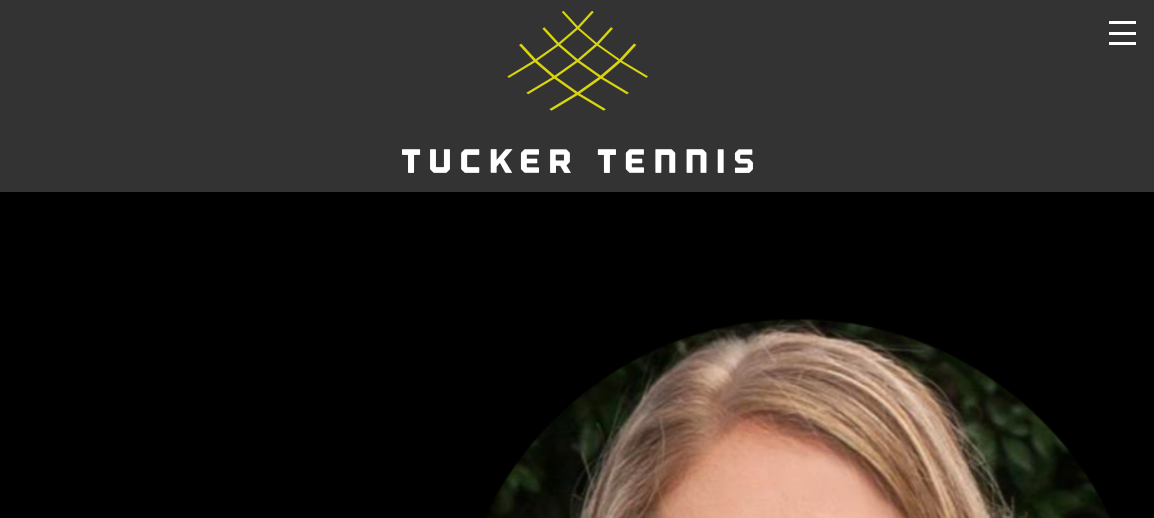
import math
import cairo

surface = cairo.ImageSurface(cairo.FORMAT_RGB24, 1154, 518)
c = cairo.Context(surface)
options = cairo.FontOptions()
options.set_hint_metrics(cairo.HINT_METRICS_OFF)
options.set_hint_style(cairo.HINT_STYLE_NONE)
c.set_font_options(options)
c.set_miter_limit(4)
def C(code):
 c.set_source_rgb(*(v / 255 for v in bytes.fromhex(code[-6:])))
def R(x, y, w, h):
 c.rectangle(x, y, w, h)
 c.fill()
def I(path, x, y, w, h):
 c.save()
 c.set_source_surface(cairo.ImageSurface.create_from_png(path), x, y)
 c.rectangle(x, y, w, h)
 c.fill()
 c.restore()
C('000000')
c.paint()
C('333333')
R(0,0,1154,192)
I('1.png',402,11,351,162)
C('ffffff')
R(1109,42,27,3)
R(1109,32,27,3)
R(1109,21,27,3)
I('2.png',485,319,626,199)
surface.write_to_png('o.png')
